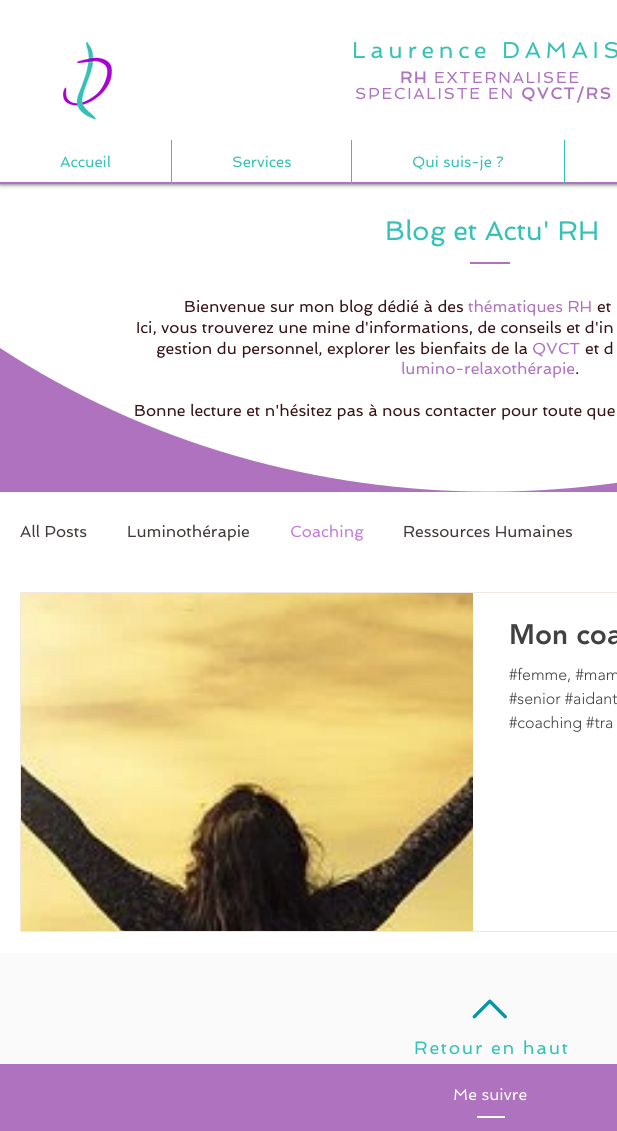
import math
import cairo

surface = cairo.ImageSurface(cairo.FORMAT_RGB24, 617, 1131)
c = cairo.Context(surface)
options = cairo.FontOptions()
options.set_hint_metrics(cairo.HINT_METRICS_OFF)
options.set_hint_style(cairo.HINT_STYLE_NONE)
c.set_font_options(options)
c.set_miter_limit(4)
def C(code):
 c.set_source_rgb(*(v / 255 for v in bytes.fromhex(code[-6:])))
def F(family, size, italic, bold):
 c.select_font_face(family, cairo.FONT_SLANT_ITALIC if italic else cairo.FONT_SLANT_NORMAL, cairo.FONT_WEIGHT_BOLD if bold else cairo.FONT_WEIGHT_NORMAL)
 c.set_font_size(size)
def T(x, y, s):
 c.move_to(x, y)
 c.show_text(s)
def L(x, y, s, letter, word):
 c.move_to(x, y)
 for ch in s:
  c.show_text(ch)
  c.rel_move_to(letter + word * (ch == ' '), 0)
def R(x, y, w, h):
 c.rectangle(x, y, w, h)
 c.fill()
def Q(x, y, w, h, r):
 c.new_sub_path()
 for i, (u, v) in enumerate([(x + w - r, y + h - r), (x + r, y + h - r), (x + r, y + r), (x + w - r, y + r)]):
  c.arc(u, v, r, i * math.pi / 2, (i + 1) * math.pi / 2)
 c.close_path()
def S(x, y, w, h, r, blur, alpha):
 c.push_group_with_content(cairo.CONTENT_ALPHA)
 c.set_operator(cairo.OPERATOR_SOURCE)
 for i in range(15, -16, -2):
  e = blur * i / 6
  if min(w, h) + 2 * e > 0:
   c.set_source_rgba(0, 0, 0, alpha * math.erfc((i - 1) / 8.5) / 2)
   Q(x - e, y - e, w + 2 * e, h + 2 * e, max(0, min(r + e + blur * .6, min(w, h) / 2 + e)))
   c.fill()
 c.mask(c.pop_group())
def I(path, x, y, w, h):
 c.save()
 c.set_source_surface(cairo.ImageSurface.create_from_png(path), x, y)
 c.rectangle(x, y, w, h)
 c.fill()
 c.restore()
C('ffffff')
c.paint()
C('000000')
S(0,0,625,184,0,2.5,.7)
C('ffffff')
R(0,0,617,182)
C('ae72be')
R(0,182,617,2)
I('1.png',62,42,50,78)
F('Spinnaker',23,0,0)
C('34c1b7')
L(352,58,'Laurence DAMAIS',4.6,0)
F('Spinnaker',16,0,1)
C('ae72be')
L(400,83,'RH',1.75,0)
F('Spinnaker',16,0,0)
L(434,83,'EXTERNALISEE',1.75,0)
L(355,99,'SPECIALISTE EN',1.75,0)
F('Spinnaker',16,0,1)
L(521,99,'QVCT/RS',1.75,0)
F('Spinnaker',15,0,0)
C('34c1b7')
T(60,167,'Accueil')
R(171,140,1,44)
T(232,167,'Services')
R(351,140,1,44)
T(412,167,'Qui suis-je ?')
R(564,140,1,44)
F('Spinnaker',27,0,0)
T(385,240,'Blog et Actu\' RH')
C('ae72be')
R(470,262,40,2)
F('Spinnaker',16,0,0)
C('361215')
T(184,312,'Bienvenue sur mon blog dédié à des')
C('ae72be')
T(468,312,'thématiques RH')
C('361215')
T(597,312,'et')
T(136,333,'Ici, vous trouverez une mine d\'informations, de conseils et d\'in')
c.save()
c.rectangle(0,342,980,150)
c.clip()
C('ae72be')
c.set_fill_rule(cairo.FILL_RULE_EVEN_ODD)
c.new_path()
c.move_to(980,348)
c.curve_to(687,539,293,540,0,348)
c.line_to(0,342)
c.line_to(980,342)
c.close_path()
c.move_to(0,493)
c.line_to(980,493)
c.line_to(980,342)
c.line_to(0,342)
c.close_path()
c.fill()
c.restore()
T(156,354,'gestion du personnel, explorer les bienfaits de la')
C('ae72be')
T(532,354,'QVCT')
C('361215')
T(585,354,'et d')
C('ae72be')
T(401,374,'lumino-relaxothérapie')
C('361215')
T(575,374,'.')
T(134,416,'Bonne lecture et n\'hésitez pas à nous contacter pour toute que')
C('413a38')
T(20,537,'All Posts')
T(127,537,'Luminothérapie')
C('c37bdd')
T(290,537,'Coaching')
C('413a38')
T(403,537,'Ressources Humaines')
c.rectangle(20.5,592.5,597,339)
C('f0e8e0')
c.set_line_width(1)
c.stroke()
I('2.png',21,593,452,338)
F('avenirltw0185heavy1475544 Black',28,0,0)
C('414141')
T(509,644,'Mon coa')
F('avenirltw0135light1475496 Light',16,0,0)
T(509,680,'#femme, #mam')
T(509,704,'#senior #aidant')
T(509,728,'#coaching #tra')
C('fafafa')
R(0,953,617,111)
I('3.png',472,999,35,20)
F('Spinnaker',18,0,0)
C('34c1b7')
L(414,1054,'Retour en haut',1.75,0)
C('ae72be')
R(0,1064,617,67)
F('Spinnaker',16,0,0)
C('ffffff')
T(453,1100,'Me suivre')
R(477,1116,28,2)
surface.write_to_png('o.png')
